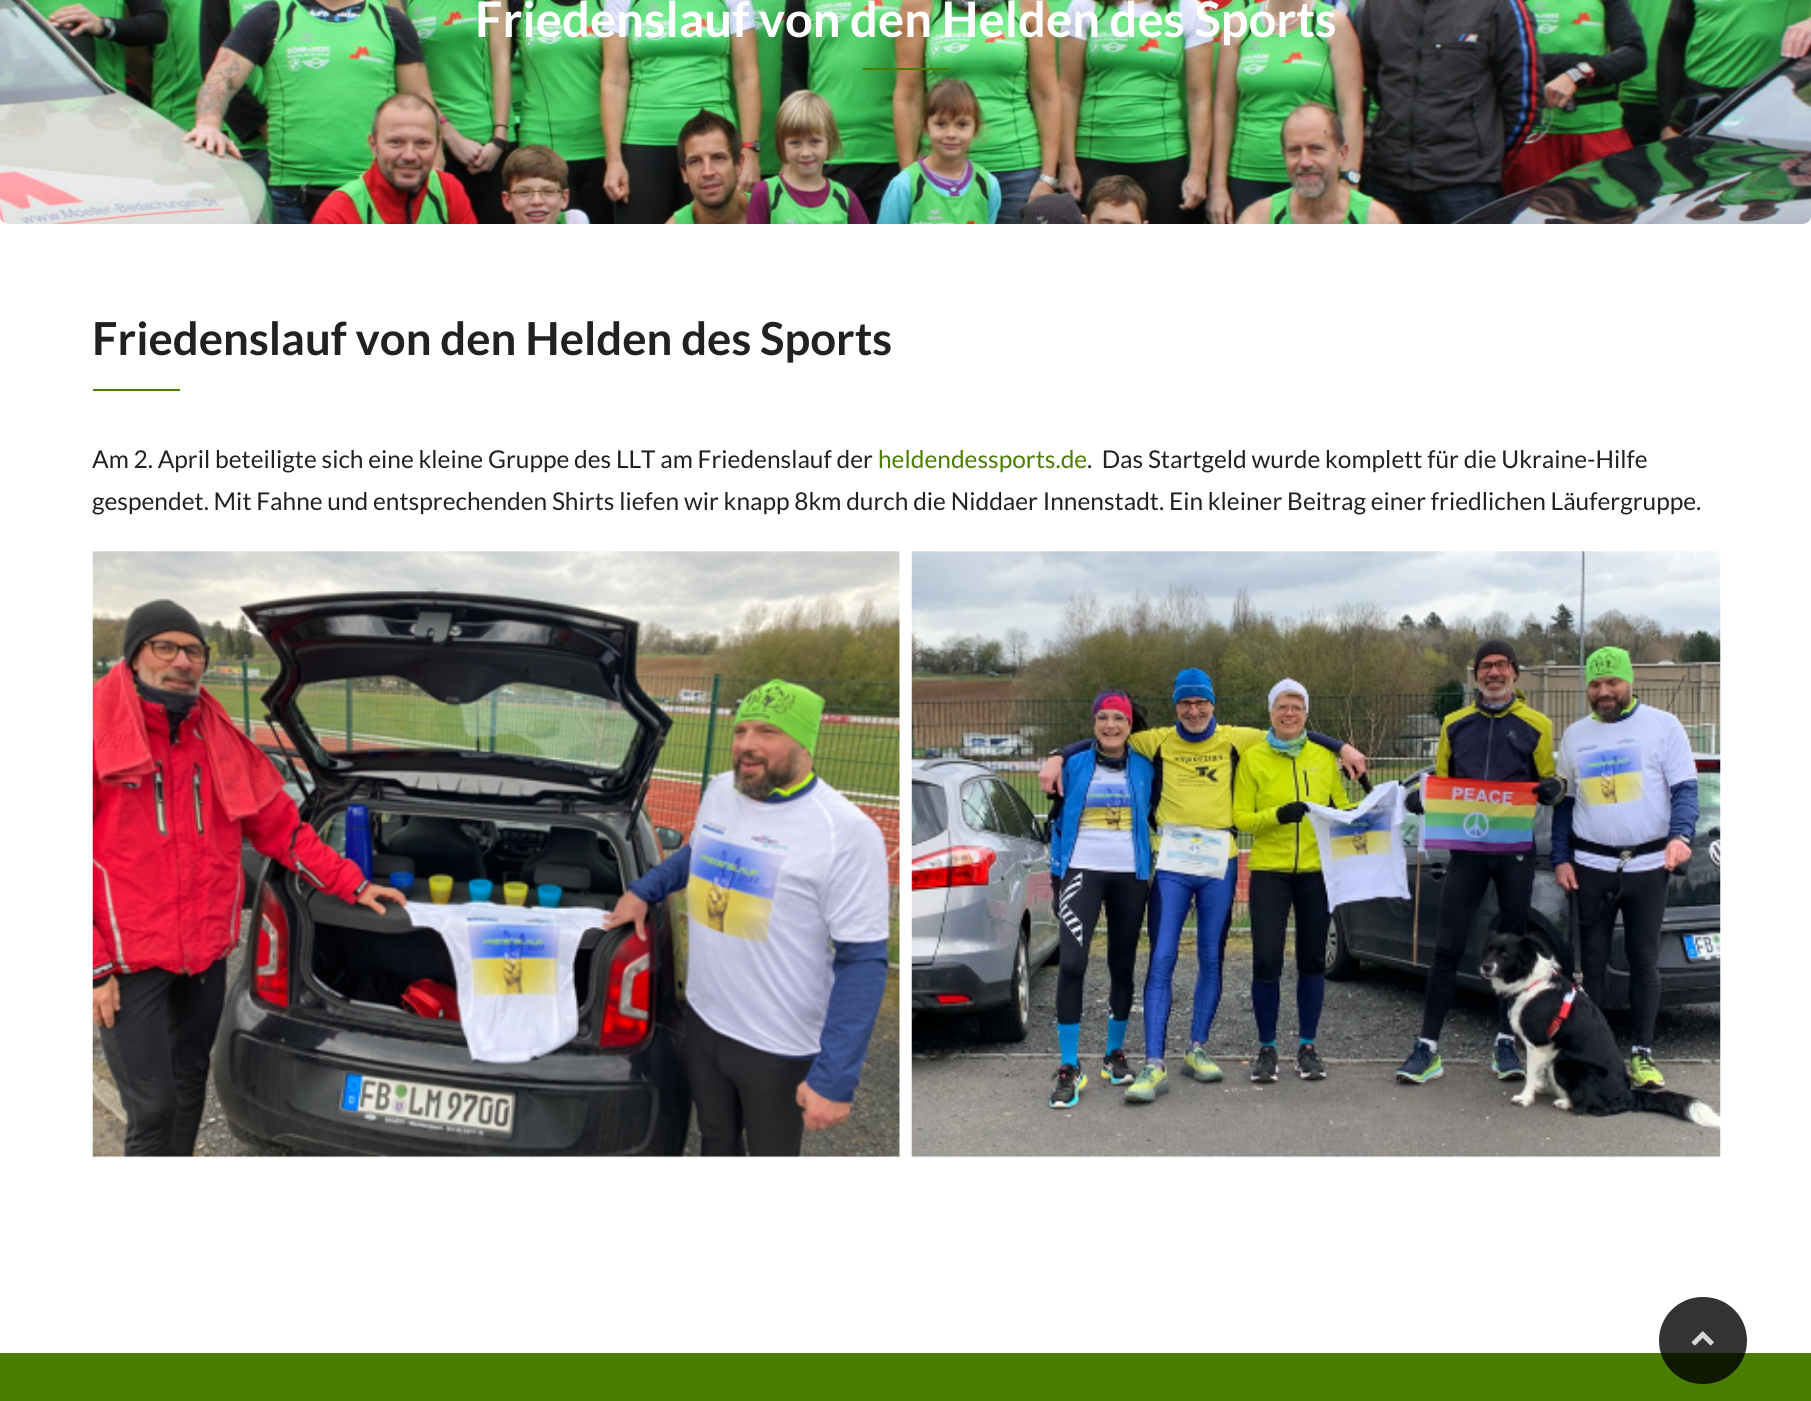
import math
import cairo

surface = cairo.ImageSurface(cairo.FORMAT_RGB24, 1811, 1401)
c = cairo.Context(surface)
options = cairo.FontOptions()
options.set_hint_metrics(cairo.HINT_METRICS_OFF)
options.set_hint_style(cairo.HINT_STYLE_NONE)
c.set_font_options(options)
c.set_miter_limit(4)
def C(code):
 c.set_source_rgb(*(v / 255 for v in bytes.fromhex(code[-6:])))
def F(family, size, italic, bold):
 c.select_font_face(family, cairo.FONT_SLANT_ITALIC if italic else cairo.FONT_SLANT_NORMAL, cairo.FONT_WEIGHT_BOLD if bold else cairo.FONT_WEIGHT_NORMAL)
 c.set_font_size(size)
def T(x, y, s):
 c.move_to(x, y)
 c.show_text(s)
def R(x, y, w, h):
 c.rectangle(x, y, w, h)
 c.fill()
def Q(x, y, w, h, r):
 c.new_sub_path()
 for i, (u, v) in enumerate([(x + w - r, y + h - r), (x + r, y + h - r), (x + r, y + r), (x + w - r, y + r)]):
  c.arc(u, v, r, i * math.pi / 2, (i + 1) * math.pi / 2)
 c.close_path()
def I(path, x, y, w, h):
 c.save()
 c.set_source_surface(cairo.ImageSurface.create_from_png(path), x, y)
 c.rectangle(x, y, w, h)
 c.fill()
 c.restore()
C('ffffff')
c.paint()
I('1.png',0,0,1811,224)
F('Lato',49,0,1)
C('ffffff')
T(475,37,'Friedenslauf von den Helden des Sports')
C('4a7e00')
R(863,68,87,2)
F('Lato',45.5,0,1)
C('212121')
T(92,355,'Friedenslauf von den Helden des Sports')
C('4a7e00')
R(93,389,87,2)
F('Lato',24.5,0,0)
C('212121')
T(92,468,'Am 2. April beteiligte sich eine kleine Gruppe des LLT am Friedenslauf der')
C('4a7e00')
T(878,468,'heldendessports.de')
C('212121')
T(1087,468,'.  Das Startgeld wurde komplett für die Ukraine-Hilfe')
T(92,510,'gespendet. Mit Fahne und entsprechenden Shirts liefen wir knapp 8km durch die Niddaer Innenstadt. Ein kleiner Beitrag einer friedlichen Läufergruppe.')
I('2.png',92,551,808,607)
I('3.png',911,551,810,607)
C('4a7e00')
R(0,1353,1811,48)
c.set_source_rgba(0,0,0,0.8)
Q(1659,1297,88,87,43.5)
c.fill()
I('4.png',1691,1331,23,15)
surface.write_to_png('o.png')
